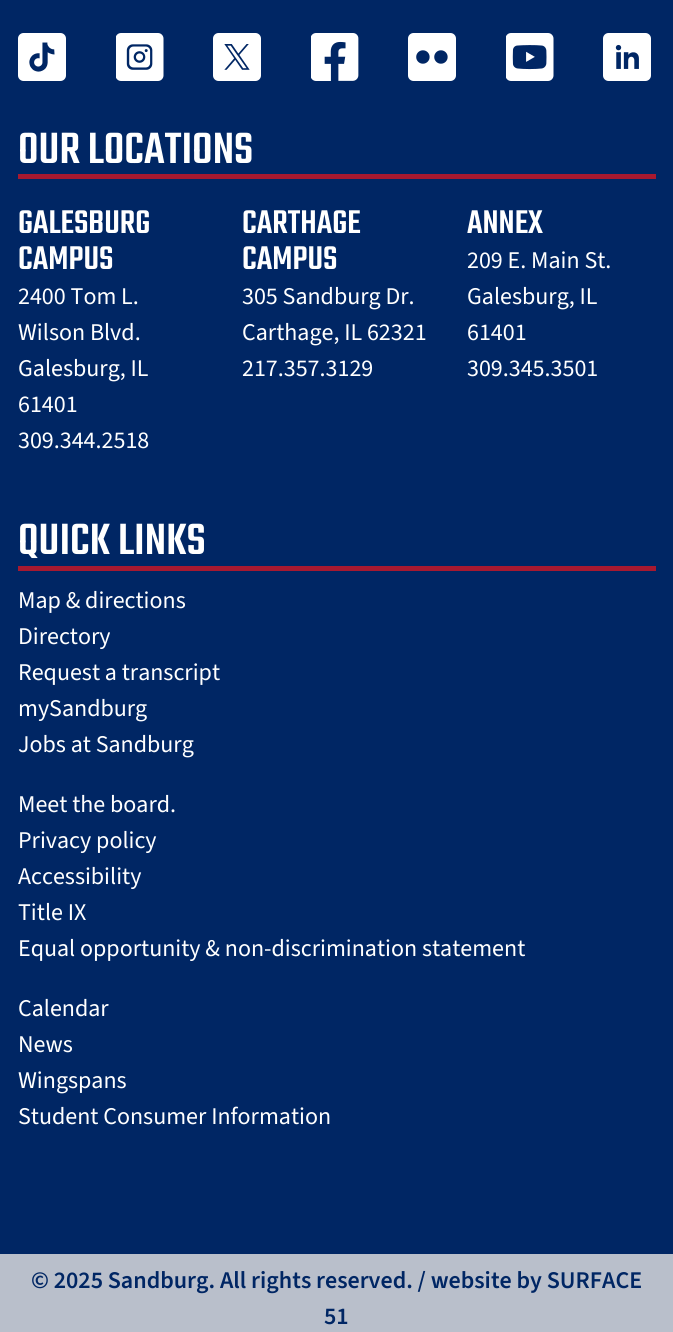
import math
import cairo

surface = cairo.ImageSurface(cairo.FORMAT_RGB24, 673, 1332)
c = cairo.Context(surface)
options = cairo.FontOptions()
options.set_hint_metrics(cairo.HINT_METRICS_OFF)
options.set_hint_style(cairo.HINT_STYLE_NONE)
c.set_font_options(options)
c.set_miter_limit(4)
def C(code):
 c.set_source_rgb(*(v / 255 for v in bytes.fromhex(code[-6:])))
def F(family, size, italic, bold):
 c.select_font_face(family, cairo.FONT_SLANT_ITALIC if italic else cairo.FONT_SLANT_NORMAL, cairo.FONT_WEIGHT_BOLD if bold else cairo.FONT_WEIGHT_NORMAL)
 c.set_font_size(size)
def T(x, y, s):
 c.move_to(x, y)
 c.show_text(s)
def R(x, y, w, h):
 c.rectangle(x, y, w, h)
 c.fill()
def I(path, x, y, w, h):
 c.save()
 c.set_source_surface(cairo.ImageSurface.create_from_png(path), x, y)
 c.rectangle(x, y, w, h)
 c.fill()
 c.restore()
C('002664')
c.paint()
I('1.png',18,33,48,48)
I('2.png',116,33,48,48)
I('3.png',213,33,48,48)
I('4.png',311,33,48,48)
I('5.png',408,33,48,48)
I('6.png',506,33,48,48)
I('7.png',603,33,48,48)
C('a71930')
R(18,174,638,5)
F('Teko Medium',48,0,0)
C('ffffff')
T(18,163,'OUR LOCATIONS')
F('Teko Medium',36,0,0)
T(18,233,'GALESBURG')
T(18,269,'CAMPUS')
F('Source Sans 3',24,0,0)
T(18,304,'2400 Tom L.')
T(18,340,'Wilson Blvd.')
T(18,376,'Galesburg, IL')
T(18,412,'61401')
T(18,448,'309.344.2518')
F('Teko Medium',36,0,0)
T(242,233,'CARTHAGE')
T(242,269,'CAMPUS')
F('Source Sans 3',24,0,0)
T(242,304,'305 Sandburg Dr.')
T(242,340,'Carthage, IL 62321')
T(242,376,'217.357.3129')
F('Teko Medium',36,0,0)
T(467,233,'ANNEX')
F('Source Sans 3',24,0,0)
T(467,268,'209 E. Main St.')
T(467,304,'Galesburg, IL')
T(467,340,'61401')
T(467,376,'309.345.3501')
C('a71930')
R(18,566,638,5)
F('Teko Medium',48,0,0)
C('ffffff')
T(18,554,'QUICK LINKS')
F('Source Sans 3',24,0,0)
T(18,608,'Map & directions')
T(18,644,'Directory')
T(18,680,'Request a transcript')
T(18,716,'mySandburg')
T(18,752,'Jobs at Sandburg')
T(18,812,'Meet the board.')
T(18,848,'Privacy policy')
T(18,884,'Accessibility')
T(18,920,'Title IX')
T(18,956,'Equal opportunity & non-discrimination statement')
T(18,1016,'Calendar')
T(18,1052,'News')
T(18,1088,'Wingspans')
T(18,1124,'Student Consumer Information')
C('b9bfcb')
R(0,1254,673,78)
F('Source Sans 3 SemiBold',24,0,0)
C('002664')
T(31,1288,'© 2025 Sandburg. All rights reserved. / website by SURFACE')
T(324,1324,'51')
surface.write_to_png('o.png')
